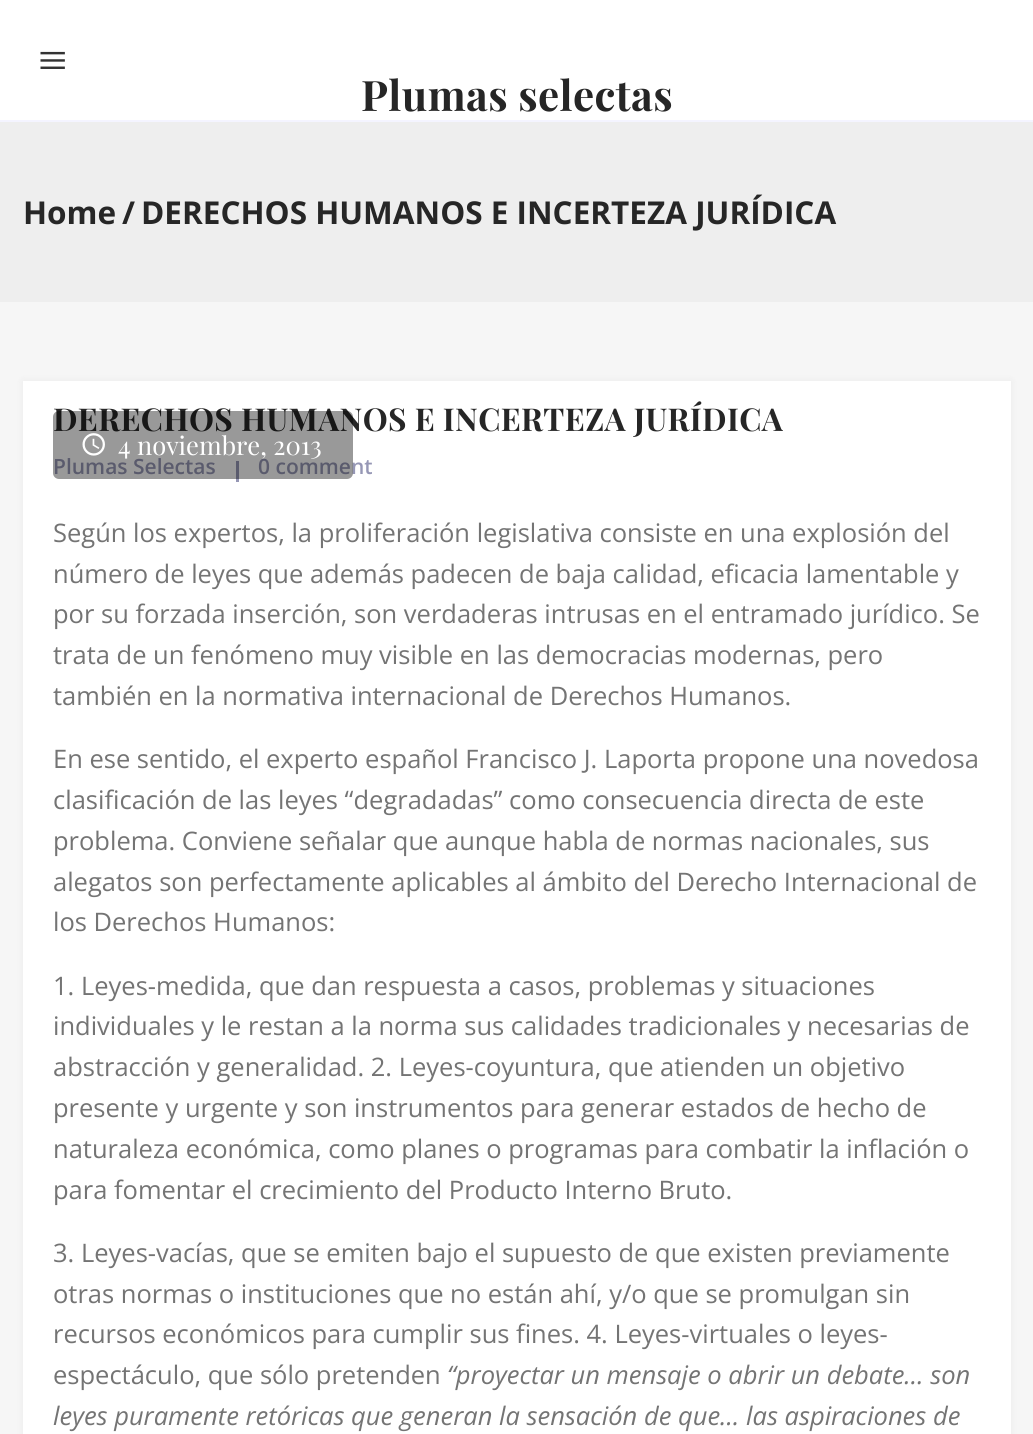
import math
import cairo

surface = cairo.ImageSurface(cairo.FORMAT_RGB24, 1033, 1434)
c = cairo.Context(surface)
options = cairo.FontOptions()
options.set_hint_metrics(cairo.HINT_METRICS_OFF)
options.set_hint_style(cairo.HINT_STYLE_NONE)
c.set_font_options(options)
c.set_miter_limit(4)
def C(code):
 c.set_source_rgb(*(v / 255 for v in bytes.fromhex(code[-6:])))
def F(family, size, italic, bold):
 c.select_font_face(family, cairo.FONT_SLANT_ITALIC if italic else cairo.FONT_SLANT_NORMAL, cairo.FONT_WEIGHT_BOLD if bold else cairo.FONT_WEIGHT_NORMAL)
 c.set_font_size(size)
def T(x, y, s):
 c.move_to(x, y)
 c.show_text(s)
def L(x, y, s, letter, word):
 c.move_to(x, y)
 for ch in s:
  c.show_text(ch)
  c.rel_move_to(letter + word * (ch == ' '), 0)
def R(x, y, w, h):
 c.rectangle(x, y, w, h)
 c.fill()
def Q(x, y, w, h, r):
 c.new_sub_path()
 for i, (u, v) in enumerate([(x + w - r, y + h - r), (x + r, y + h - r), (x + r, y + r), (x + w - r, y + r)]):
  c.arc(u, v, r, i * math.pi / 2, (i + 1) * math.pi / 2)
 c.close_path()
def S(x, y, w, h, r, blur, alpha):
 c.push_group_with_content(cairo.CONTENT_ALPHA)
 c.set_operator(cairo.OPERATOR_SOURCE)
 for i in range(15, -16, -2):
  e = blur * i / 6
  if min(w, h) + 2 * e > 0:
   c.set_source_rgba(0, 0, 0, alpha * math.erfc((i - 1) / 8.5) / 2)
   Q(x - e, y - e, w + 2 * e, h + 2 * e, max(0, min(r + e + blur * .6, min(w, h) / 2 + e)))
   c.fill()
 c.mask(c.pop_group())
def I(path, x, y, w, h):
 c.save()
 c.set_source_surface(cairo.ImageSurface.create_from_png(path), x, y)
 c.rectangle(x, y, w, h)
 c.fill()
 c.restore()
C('ffffff')
c.paint()
C('f4f4ff')
R(0,120,1033,2)
I('1.png',40,51,25,18)
F('Playfair Display',42,0,1)
C('262626')
L(361,111,'Plumas selectas',.4,0)
C('eeeeee')
R(0,122,1033,180)
F('Open Sans',31.5,0,1)
C('262626')
T(23,224,'Home')
T(122,224,'/')
T(141,224,'DERECHOS HUMANOS E INCERTEZA JURÍDICA')
C('f6f6f6')
R(0,302,1033,1132)
C('000000')
S(23,381,988,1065,0,4,.05)
C('ffffff')
R(23,381,988,1053)
F('Playfair Display',31.5,0,1)
C('262626')
L(53,431,'DERECHOS HUMANOS E INCERTEZA JURÍDICA',.4,0)
F('Open Sans SemiBold',21,0,0)
C('9697b5')
T(53,474,'Plumas Selectas')
R(236,461,3,21)
T(258,474,'0 comment')
F('Open Sans',25.5,0,0)
C('747474')
T(53,542,'Según los expertos, la proliferación legislativa consiste en una explosión del')
T(53,583,'número de leyes que además padecen de baja calidad, eficacia lamentable y')
T(53,623,'por su forzada inserción, son verdaderas intrusas en el entramado jurídico. Se')
T(53,664,'trata de un fenómeno muy visible en las democracias modernas, pero')
T(53,705,'también en la normativa internacional de Derechos Humanos.')
T(53,768,'En ese sentido, el experto español Francisco J. Laporta propone una novedosa')
T(53,809,'clasificación de las leyes “degradadas” como consecuencia directa de este')
T(53,850,'problema. Conviene señalar que aunque habla de normas nacionales, sus')
T(53,891,'alegatos son perfectamente aplicables al ámbito del Derecho Internacional de')
T(53,931,'los Derechos Humanos:')
T(53,995,'1. Leyes-medida, que dan respuesta a casos, problemas y situaciones')
T(53,1035,'individuales y le restan a la norma sus calidades tradicionales y necesarias de')
T(53,1076,'abstracción y generalidad. 2. Leyes-coyuntura, que atienden un objetivo')
T(53,1117,'presente y urgente y son instrumentos para generar estados de hecho de')
T(53,1158,'naturaleza económica, como planes o programas para combatir la inflación o')
T(53,1199,'para fomentar el crecimiento del Producto Interno Bruto.')
T(53,1262,'3. Leyes-vacías, que se emiten bajo el supuesto de que existen previamente')
T(53,1303,'otras normas o instituciones que no están ahí, y/o que se promulgan sin')
T(53,1343,'recursos económicos para cumplir sus fines. 4. Leyes-virtuales o leyes-')
T(53,1384,'espectáculo, que sólo pretenden')
F('Open Sans',25.5,1,0)
T(447,1384,'“proyectar un mensaje o abrir un debate… son')
T(53,1425,'leyes puramente retóricas que generan la sensación de que… las aspiraciones de')
c.set_source_rgba(0,0,0,0.4)
Q(53,411,300,68,6)
c.fill()
I('2.png',82,433,23,23)
F('Playfair Display',25.5,0,0)
C('ffffff')
T(118,455,'4 noviembre, 2013')
surface.write_to_png('o.png')
